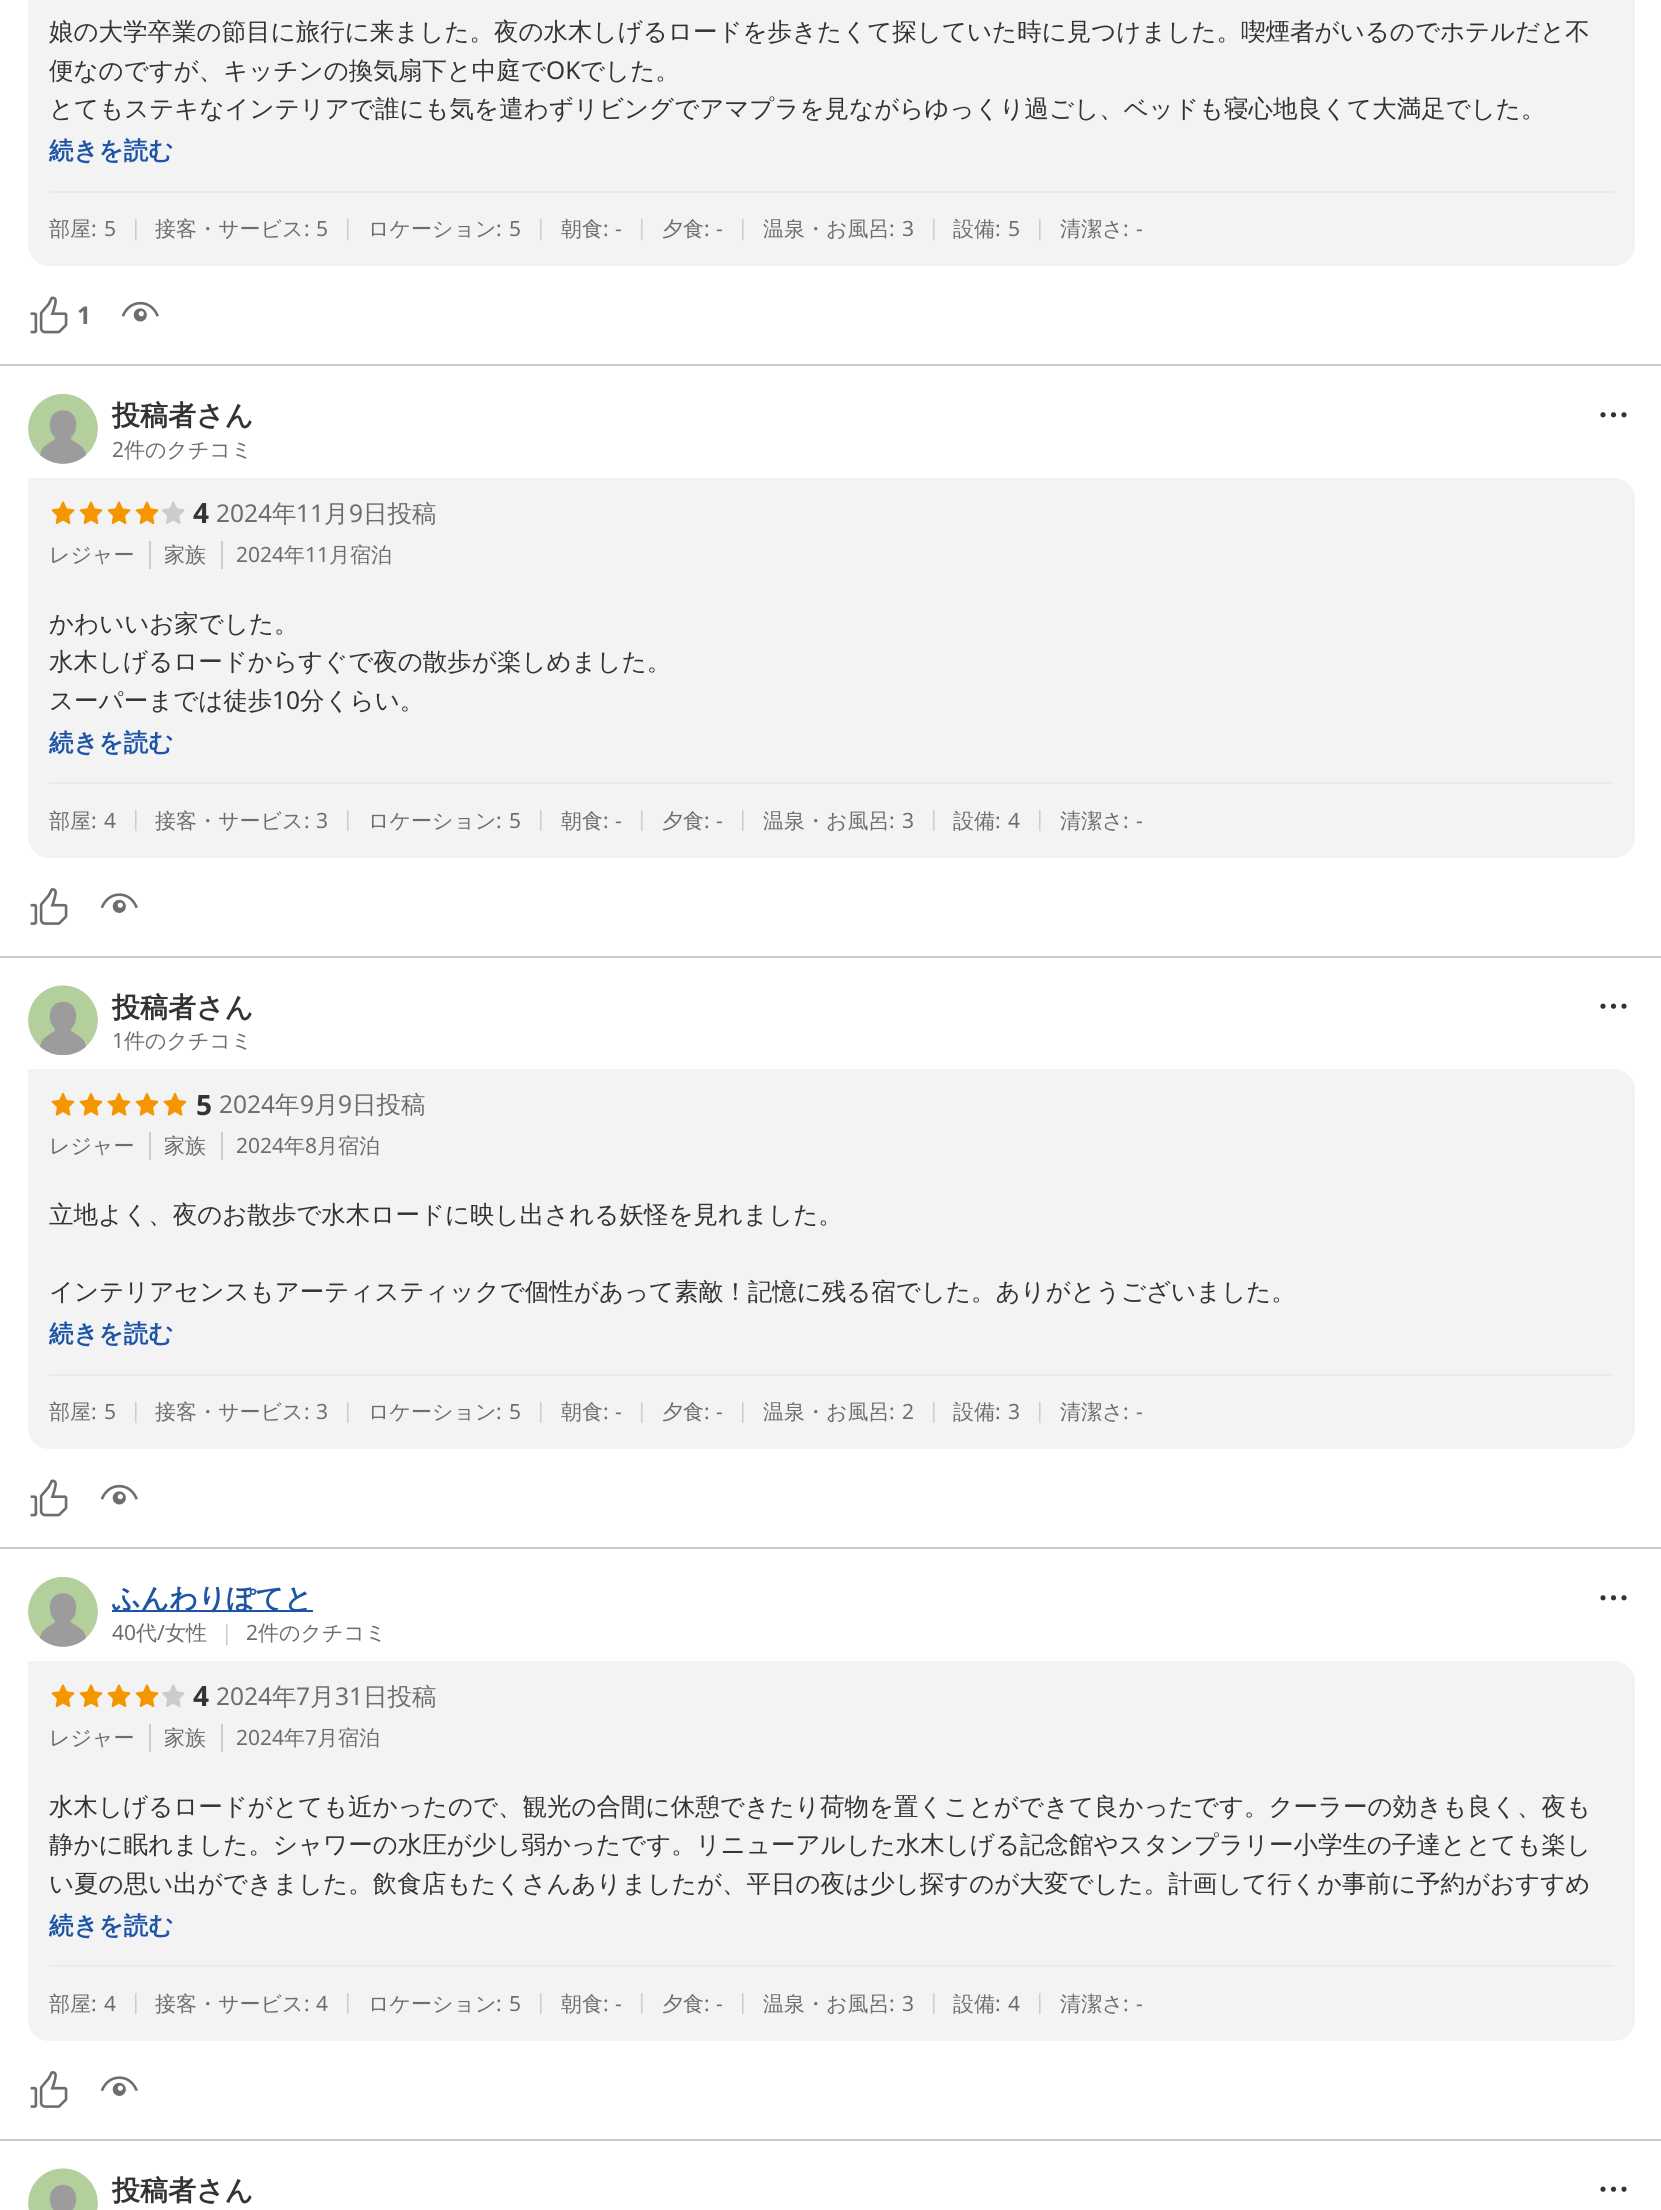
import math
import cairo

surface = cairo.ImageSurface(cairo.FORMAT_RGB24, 1661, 2210)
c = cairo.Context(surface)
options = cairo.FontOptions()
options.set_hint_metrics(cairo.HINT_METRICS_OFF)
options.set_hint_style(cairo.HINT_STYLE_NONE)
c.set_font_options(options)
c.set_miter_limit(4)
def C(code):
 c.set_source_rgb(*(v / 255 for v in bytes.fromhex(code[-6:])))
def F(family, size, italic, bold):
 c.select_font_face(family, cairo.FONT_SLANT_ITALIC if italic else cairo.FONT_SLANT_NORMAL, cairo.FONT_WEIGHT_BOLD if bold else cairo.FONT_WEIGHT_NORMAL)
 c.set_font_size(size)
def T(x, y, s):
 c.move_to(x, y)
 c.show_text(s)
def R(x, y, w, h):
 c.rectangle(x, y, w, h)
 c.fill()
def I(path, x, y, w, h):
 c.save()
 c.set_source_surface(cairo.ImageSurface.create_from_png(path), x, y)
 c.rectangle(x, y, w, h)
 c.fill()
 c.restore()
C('ffffff')
c.paint()
C('f3f3f3')
c.new_path()
c.move_to(28,-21)
c.line_to(1635,-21)
c.line_to(1635,245)
c.curve_to(1635,256.5,1625.5,266,1614,266)
c.line_to(49,266)
c.curve_to(37.5,266,28,256.5,28,245)
c.close_path()
c.fill()
F('WenQuanYi Zen Hei Medium',24.5,0,0)
C('333333')
T(49,40,'娘の大学卒業の節目に旅行に来ました。夜の水木しげるロードを歩きたくて探していた時に見つけました。喫煙者がいるのでホテルだと不')
T(49,79,'便なのですが、キッチンの換気扇下と中庭で')
F('Noto Sans',24.5,0,0)
T(546,79,'OK')
F('WenQuanYi Zen Hei Medium',24.5,0,0)
T(580,79,'でした。')
T(49,117,'とてもステキなインテリアで誰にも気を遣わずリビングでアマプラを見ながらゆっくり過ごし、ベッドも寝心地良くて大満足でした。')
F('WenQuanYi Zen Hei',24.5,0,1)
C('1d54a7')
T(49,159,'続きを読む')
C('eaeaea')
R(49,191,1565,2)
F('WenQuanYi Zen Hei Medium',21,0,0)
C('6d6d6d')
T(49,236,'部屋')
F('Noto Sans',21,0,0)
T(91,236,':')
T(104,236,'5')
C('cccccc')
T(130,235,'|')
F('WenQuanYi Zen Hei Medium',21,0,0)
C('6d6d6d')
T(155,236,'接客・サービス')
F('Noto Sans',21,0,0)
T(304,236,':')
T(316,236,'5')
C('cccccc')
T(342,235,'|')
F('WenQuanYi Zen Hei Medium',21,0,0)
C('6d6d6d')
T(368,236,'ロケーション')
F('Noto Sans',21,0,0)
T(496,236,':')
T(509,236,'5')
C('cccccc')
T(535,235,'|')
F('WenQuanYi Zen Hei Medium',21,0,0)
C('6d6d6d')
T(561,236,'朝食')
F('Noto Sans',21,0,0)
T(603,236,':')
T(615,236,'-')
C('cccccc')
T(636,235,'|')
F('WenQuanYi Zen Hei Medium',21,0,0)
C('6d6d6d')
T(662,236,'夕食')
F('Noto Sans',21,0,0)
T(704,236,':')
T(716,236,'-')
C('cccccc')
T(737,235,'|')
F('WenQuanYi Zen Hei Medium',21,0,0)
C('6d6d6d')
T(763,236,'温泉・お風呂')
F('Noto Sans',21,0,0)
T(889,236,':')
T(902,236,'3')
C('cccccc')
T(928,235,'|')
F('WenQuanYi Zen Hei Medium',21,0,0)
C('6d6d6d')
T(953,236,'設備')
F('Noto Sans',21,0,0)
T(995,236,':')
T(1008,236,'5')
C('cccccc')
T(1034,235,'|')
F('WenQuanYi Zen Hei Medium',21,0,0)
C('6d6d6d')
T(1060,236,'清潔さ')
F('Noto Sans',21,0,0)
T(1123,236,':')
T(1136,236,'-')
I('1.png',30,296,38,38)
F('Noto Sans',24.5,0,1)
T(77,324,'1')
I('2.png',121,301,38,21)
C('cccccc')
R(0,364,1661,2)
I('3.png',28,394,70,70)
F('WenQuanYi Zen Hei',28,0,1)
C('333333')
T(112,425,'投稿者さん')
F('Noto Sans',21,0,0)
C('6d6d6d')
T(112,457,'2')
F('WenQuanYi Zen Hei Medium',21,0,0)
T(124,457,'件のクチコミ')
C('333333')
c.new_path()
c.arc(1603,414.8,2.6,0,2 * math.pi)
c.fill()
c.arc(1613.5,414.8,2.6,0,2 * math.pi)
c.fill()
c.arc(1624,414.8,2.6,0,2 * math.pi)
c.fill()
C('f3f3f3')
c.new_path()
c.move_to(28,478)
c.line_to(1614,478)
c.curve_to(1625.5,478,1635,487.5,1635,499)
c.line_to(1635,569)
c.line_to(28,569)
c.close_path()
c.fill()
I('4.png',51,501,24,24)
I('4.png',79,501,24,24)
I('4.png',107,501,24,24)
I('4.png',135,501,24,24)
I('5.png',162,501,23,23)
F('Noto Sans',28,0,1)
C('333333')
T(193,523,'4')
F('Noto Sans',24.5,0,0)
C('6d6d6d')
T(216,522,'2024')
F('WenQuanYi Zen Hei Medium',24.5,0,0)
T(272,522,'年')
F('Noto Sans',24.5,0,0)
T(296,522,'11')
F('WenQuanYi Zen Hei Medium',24.5,0,0)
T(324,522,'月')
F('Noto Sans',24.5,0,0)
T(349,522,'9')
F('WenQuanYi Zen Hei Medium',24.5,0,0)
T(363,522,'日投稿')
F('WenQuanYi Zen Hei Medium',21,0,0)
T(49,562,'レジャー')
C('cccccc')
R(149,541,2,28)
C('6d6d6d')
T(164,562,'家族')
C('cccccc')
R(221,541,2,28)
F('Noto Sans',21,0,0)
C('6d6d6d')
T(236,562,'2024')
F('WenQuanYi Zen Hei Medium',21,0,0)
T(284,562,'年')
F('Noto Sans',21,0,0)
T(305,562,'11')
F('WenQuanYi Zen Hei Medium',21,0,0)
T(329,562,'月宿泊')
C('f3f3f3')
c.new_path()
c.move_to(28,569)
c.line_to(1635,569)
c.line_to(1635,837)
c.curve_to(1635,848.5,1625.5,858,1614,858)
c.line_to(49,858)
c.curve_to(37.5,858,28,848.5,28,837)
c.close_path()
c.fill()
F('WenQuanYi Zen Hei Medium',24.5,0,0)
C('333333')
T(49,632,'かわいいお家でした。')
T(49,670,'水木しげるロードからすぐで夜の散歩が楽しめました。')
T(49,709,'スーパーまでは徒歩')
F('Noto Sans',24.5,0,0)
T(272,709,'10')
F('WenQuanYi Zen Hei Medium',24.5,0,0)
T(300,709,'分くらい。')
F('WenQuanYi Zen Hei',24.5,0,1)
C('1d54a7')
T(49,751,'続きを読む')
C('eaeaea')
R(49,782,1565,2)
F('WenQuanYi Zen Hei Medium',21,0,0)
C('6d6d6d')
T(49,828,'部屋')
F('Noto Sans',21,0,0)
T(91,828,':')
T(104,828,'4')
C('cccccc')
T(130,826,'|')
F('WenQuanYi Zen Hei Medium',21,0,0)
C('6d6d6d')
T(155,828,'接客・サービス')
F('Noto Sans',21,0,0)
T(304,828,':')
T(316,828,'3')
C('cccccc')
T(342,826,'|')
F('WenQuanYi Zen Hei Medium',21,0,0)
C('6d6d6d')
T(368,828,'ロケーション')
F('Noto Sans',21,0,0)
T(496,828,':')
T(509,828,'5')
C('cccccc')
T(535,826,'|')
F('WenQuanYi Zen Hei Medium',21,0,0)
C('6d6d6d')
T(561,828,'朝食')
F('Noto Sans',21,0,0)
T(603,828,':')
T(615,828,'-')
C('cccccc')
T(636,826,'|')
F('WenQuanYi Zen Hei Medium',21,0,0)
C('6d6d6d')
T(662,828,'夕食')
F('Noto Sans',21,0,0)
T(704,828,':')
T(716,828,'-')
C('cccccc')
T(737,826,'|')
F('WenQuanYi Zen Hei Medium',21,0,0)
C('6d6d6d')
T(763,828,'温泉・お風呂')
F('Noto Sans',21,0,0)
T(889,828,':')
T(902,828,'3')
C('cccccc')
T(928,826,'|')
F('WenQuanYi Zen Hei Medium',21,0,0)
C('6d6d6d')
T(953,828,'設備')
F('Noto Sans',21,0,0)
T(995,828,':')
T(1008,828,'4')
C('cccccc')
T(1034,826,'|')
F('WenQuanYi Zen Hei Medium',21,0,0)
C('6d6d6d')
T(1060,828,'清潔さ')
F('Noto Sans',21,0,0)
T(1123,828,':')
T(1136,828,'-')
I('6.png',30,888,38,37)
I('7.png',100,893,38,20)
C('cccccc')
R(0,956,1661,2)
I('8.png',28,985,70,70)
F('WenQuanYi Zen Hei',28,0,1)
C('333333')
T(112,1017,'投稿者さん')
F('Noto Sans',21,0,0)
C('6d6d6d')
T(112,1048,'1')
F('WenQuanYi Zen Hei Medium',21,0,0)
T(124,1048,'件のクチコミ')
C('333333')
c.new_path()
c.arc(1603,1006.2,2.6,0,2 * math.pi)
c.fill()
c.arc(1613.5,1006.2,2.6,0,2 * math.pi)
c.fill()
c.arc(1624,1006.2,2.6,0,2 * math.pi)
c.fill()
C('f3f3f3')
c.new_path()
c.move_to(28,1069)
c.line_to(1614,1069)
c.curve_to(1625.5,1069,1635,1078.5,1635,1090)
c.line_to(1635,1160)
c.line_to(28,1160)
c.close_path()
c.fill()
I('9.png',51,1092,24,24)
I('9.png',79,1092,24,24)
I('9.png',107,1092,24,24)
I('9.png',135,1092,24,24)
I('9.png',163,1092,24,24)
F('Noto Sans',28,0,1)
C('333333')
T(196,1115,'5')
F('Noto Sans',24.5,0,0)
C('6d6d6d')
T(219,1113,'2024')
F('WenQuanYi Zen Hei Medium',24.5,0,0)
T(275,1113,'年')
F('Noto Sans',24.5,0,0)
T(300,1113,'9')
F('WenQuanYi Zen Hei Medium',24.5,0,0)
T(314,1113,'月')
F('Noto Sans',24.5,0,0)
T(338,1113,'9')
F('WenQuanYi Zen Hei Medium',24.5,0,0)
T(352,1113,'日投稿')
F('WenQuanYi Zen Hei Medium',21,0,0)
T(49,1153,'レジャー')
C('cccccc')
R(149,1132,2,28)
C('6d6d6d')
T(164,1153,'家族')
C('cccccc')
R(221,1132,2,28)
F('Noto Sans',21,0,0)
C('6d6d6d')
T(236,1153,'2024')
F('WenQuanYi Zen Hei Medium',21,0,0)
T(284,1153,'年')
F('Noto Sans',21,0,0)
T(305,1153,'8')
F('WenQuanYi Zen Hei Medium',21,0,0)
T(317,1153,'月宿泊')
C('f3f3f3')
c.new_path()
c.move_to(28,1160)
c.line_to(1635,1160)
c.line_to(1635,1428)
c.curve_to(1635,1439.5,1625.5,1449,1614,1449)
c.line_to(49,1449)
c.curve_to(37.5,1449,28,1439.5,28,1428)
c.close_path()
c.fill()
F('WenQuanYi Zen Hei Medium',24.5,0,0)
C('333333')
T(49,1223,'立地よく、夜のお散歩で水木ロードに映し出される妖怪を見れました。')
T(49,1300,'インテリアセンスもアーティスティックで個性があって素敵！記憶に残る宿でした。ありがとうございました。')
F('WenQuanYi Zen Hei',24.5,0,1)
C('1d54a7')
T(49,1342,'続きを読む')
C('eaeaea')
R(49,1374,1565,2)
F('WenQuanYi Zen Hei Medium',21,0,0)
C('6d6d6d')
T(49,1419,'部屋')
F('Noto Sans',21,0,0)
T(91,1419,':')
T(104,1419,'5')
C('cccccc')
T(130,1418,'|')
F('WenQuanYi Zen Hei Medium',21,0,0)
C('6d6d6d')
T(155,1419,'接客・サービス')
F('Noto Sans',21,0,0)
T(304,1419,':')
T(316,1419,'3')
C('cccccc')
T(342,1418,'|')
F('WenQuanYi Zen Hei Medium',21,0,0)
C('6d6d6d')
T(368,1419,'ロケーション')
F('Noto Sans',21,0,0)
T(496,1419,':')
T(509,1419,'5')
C('cccccc')
T(535,1418,'|')
F('WenQuanYi Zen Hei Medium',21,0,0)
C('6d6d6d')
T(561,1419,'朝食')
F('Noto Sans',21,0,0)
T(603,1419,':')
T(615,1419,'-')
C('cccccc')
T(636,1418,'|')
F('WenQuanYi Zen Hei Medium',21,0,0)
C('6d6d6d')
T(662,1419,'夕食')
F('Noto Sans',21,0,0)
T(704,1419,':')
T(716,1419,'-')
C('cccccc')
T(737,1418,'|')
F('WenQuanYi Zen Hei Medium',21,0,0)
C('6d6d6d')
T(763,1419,'温泉・お風呂')
F('Noto Sans',21,0,0)
T(889,1419,':')
T(902,1419,'2')
C('cccccc')
T(928,1418,'|')
F('WenQuanYi Zen Hei Medium',21,0,0)
C('6d6d6d')
T(953,1419,'設備')
F('Noto Sans',21,0,0)
T(995,1419,':')
T(1008,1419,'3')
C('cccccc')
T(1034,1418,'|')
F('WenQuanYi Zen Hei Medium',21,0,0)
C('6d6d6d')
T(1060,1419,'清潔さ')
F('Noto Sans',21,0,0)
T(1123,1419,':')
T(1136,1419,'-')
I('1.png',30,1479,38,38)
I('2.png',100,1484,38,21)
C('cccccc')
R(0,1547,1661,2)
I('3.png',28,1577,70,70)
C('1d54a7')
R(112,1610,201,2)
F('WenQuanYi Zen Hei',28,0,1)
T(112,1608,'ふんわりぽてと')
F('Noto Sans',21,0,0)
C('6d6d6d')
T(112,1640,'40')
F('WenQuanYi Zen Hei Medium',21,0,0)
T(136,1640,'代')
F('Noto Sans',21,0,0)
T(157,1640,'/')
F('WenQuanYi Zen Hei Medium',21,0,0)
T(165,1640,'女性')
F('Noto Sans',21,0,0)
C('cccccc')
T(221,1640,'|')
C('6d6d6d')
T(246,1640,'2')
F('WenQuanYi Zen Hei Medium',21,0,0)
T(258,1640,'件のクチコミ')
C('333333')
c.new_path()
c.arc(1603,1597.8,2.6,0,2 * math.pi)
c.fill()
c.arc(1613.5,1597.8,2.6,0,2 * math.pi)
c.fill()
c.arc(1624,1597.8,2.6,0,2 * math.pi)
c.fill()
C('f3f3f3')
c.new_path()
c.move_to(28,1661)
c.line_to(1614,1661)
c.curve_to(1625.5,1661,1635,1670.5,1635,1682)
c.line_to(1635,1752)
c.line_to(28,1752)
c.close_path()
c.fill()
I('4.png',51,1684,24,24)
I('4.png',79,1684,24,24)
I('4.png',107,1684,24,24)
I('4.png',135,1684,24,24)
I('5.png',162,1684,23,23)
F('Noto Sans',28,0,1)
C('333333')
T(193,1706,'4')
F('Noto Sans',24.5,0,0)
C('6d6d6d')
T(216,1705,'2024')
F('WenQuanYi Zen Hei Medium',24.5,0,0)
T(272,1705,'年')
F('Noto Sans',24.5,0,0)
T(296,1705,'7')
F('WenQuanYi Zen Hei Medium',24.5,0,0)
T(310,1705,'月')
F('Noto Sans',24.5,0,0)
T(335,1705,'31')
F('WenQuanYi Zen Hei Medium',24.5,0,0)
T(363,1705,'日投稿')
F('WenQuanYi Zen Hei Medium',21,0,0)
T(49,1745,'レジャー')
C('cccccc')
R(149,1724,2,28)
C('6d6d6d')
T(164,1745,'家族')
C('cccccc')
R(221,1724,2,28)
F('Noto Sans',21,0,0)
C('6d6d6d')
T(236,1745,'2024')
F('WenQuanYi Zen Hei Medium',21,0,0)
T(284,1745,'年')
F('Noto Sans',21,0,0)
T(305,1745,'7')
F('WenQuanYi Zen Hei Medium',21,0,0)
T(317,1745,'月宿泊')
C('f3f3f3')
c.new_path()
c.move_to(28,1752)
c.line_to(1635,1752)
c.line_to(1635,2020)
c.curve_to(1635,2031.5,1625.5,2041,1614,2041)
c.line_to(49,2041)
c.curve_to(37.5,2041,28,2031.5,28,2020)
c.close_path()
c.fill()
F('WenQuanYi Zen Hei Medium',24.5,0,0)
C('333333')
T(49,1815,'水木しげるロードがとても近かったので、観光の合間に休憩できたり荷物を置くことができて良かったです。クーラーの効きも良く、夜も')
T(49,1853,'静かに眠れました。シャワーの水圧が少し弱かったです。リニューアルした水木しげる記念館やスタンプラリー小学生の子達ととても楽し')
T(49,1892,'い夏の思い出ができました。飲食店もたくさんありましたが、平日の夜は少し探すのが大変でした。計画して行くか事前に予約がおすすめ')
F('WenQuanYi Zen Hei',24.5,0,1)
C('1d54a7')
T(49,1934,'続きを読む')
C('eaeaea')
R(49,1965,1565,2)
F('WenQuanYi Zen Hei Medium',21,0,0)
C('6d6d6d')
T(49,2011,'部屋')
F('Noto Sans',21,0,0)
T(91,2011,':')
T(104,2011,'4')
C('cccccc')
T(130,2009,'|')
F('WenQuanYi Zen Hei Medium',21,0,0)
C('6d6d6d')
T(155,2011,'接客・サービス')
F('Noto Sans',21,0,0)
T(304,2011,':')
T(316,2011,'4')
C('cccccc')
T(342,2009,'|')
F('WenQuanYi Zen Hei Medium',21,0,0)
C('6d6d6d')
T(368,2011,'ロケーション')
F('Noto Sans',21,0,0)
T(496,2011,':')
T(509,2011,'5')
C('cccccc')
T(535,2009,'|')
F('WenQuanYi Zen Hei Medium',21,0,0)
C('6d6d6d')
T(561,2011,'朝食')
F('Noto Sans',21,0,0)
T(603,2011,':')
T(615,2011,'-')
C('cccccc')
T(636,2009,'|')
F('WenQuanYi Zen Hei Medium',21,0,0)
C('6d6d6d')
T(662,2011,'夕食')
F('Noto Sans',21,0,0)
T(704,2011,':')
T(716,2011,'-')
C('cccccc')
T(737,2009,'|')
F('WenQuanYi Zen Hei Medium',21,0,0)
C('6d6d6d')
T(763,2011,'温泉・お風呂')
F('Noto Sans',21,0,0)
T(889,2011,':')
T(902,2011,'3')
C('cccccc')
T(928,2009,'|')
F('WenQuanYi Zen Hei Medium',21,0,0)
C('6d6d6d')
T(953,2011,'設備')
F('Noto Sans',21,0,0)
T(995,2011,':')
T(1008,2011,'4')
C('cccccc')
T(1034,2009,'|')
F('WenQuanYi Zen Hei Medium',21,0,0)
C('6d6d6d')
T(1060,2011,'清潔さ')
F('Noto Sans',21,0,0)
T(1123,2011,':')
T(1136,2011,'-')
I('6.png',30,2071,38,37)
I('7.png',100,2076,38,20)
C('cccccc')
R(0,2139,1661,2)
I('10.png',28,2168,70,42)
F('WenQuanYi Zen Hei',28,0,1)
C('333333')
T(112,2200,'投稿者さん')
c.new_path()
c.arc(1603,2189.2,2.6,0,2 * math.pi)
c.fill()
c.arc(1613.5,2189.2,2.6,0,2 * math.pi)
c.fill()
c.arc(1624,2189.2,2.6,0,2 * math.pi)
c.fill()
surface.write_to_png('o.png')
